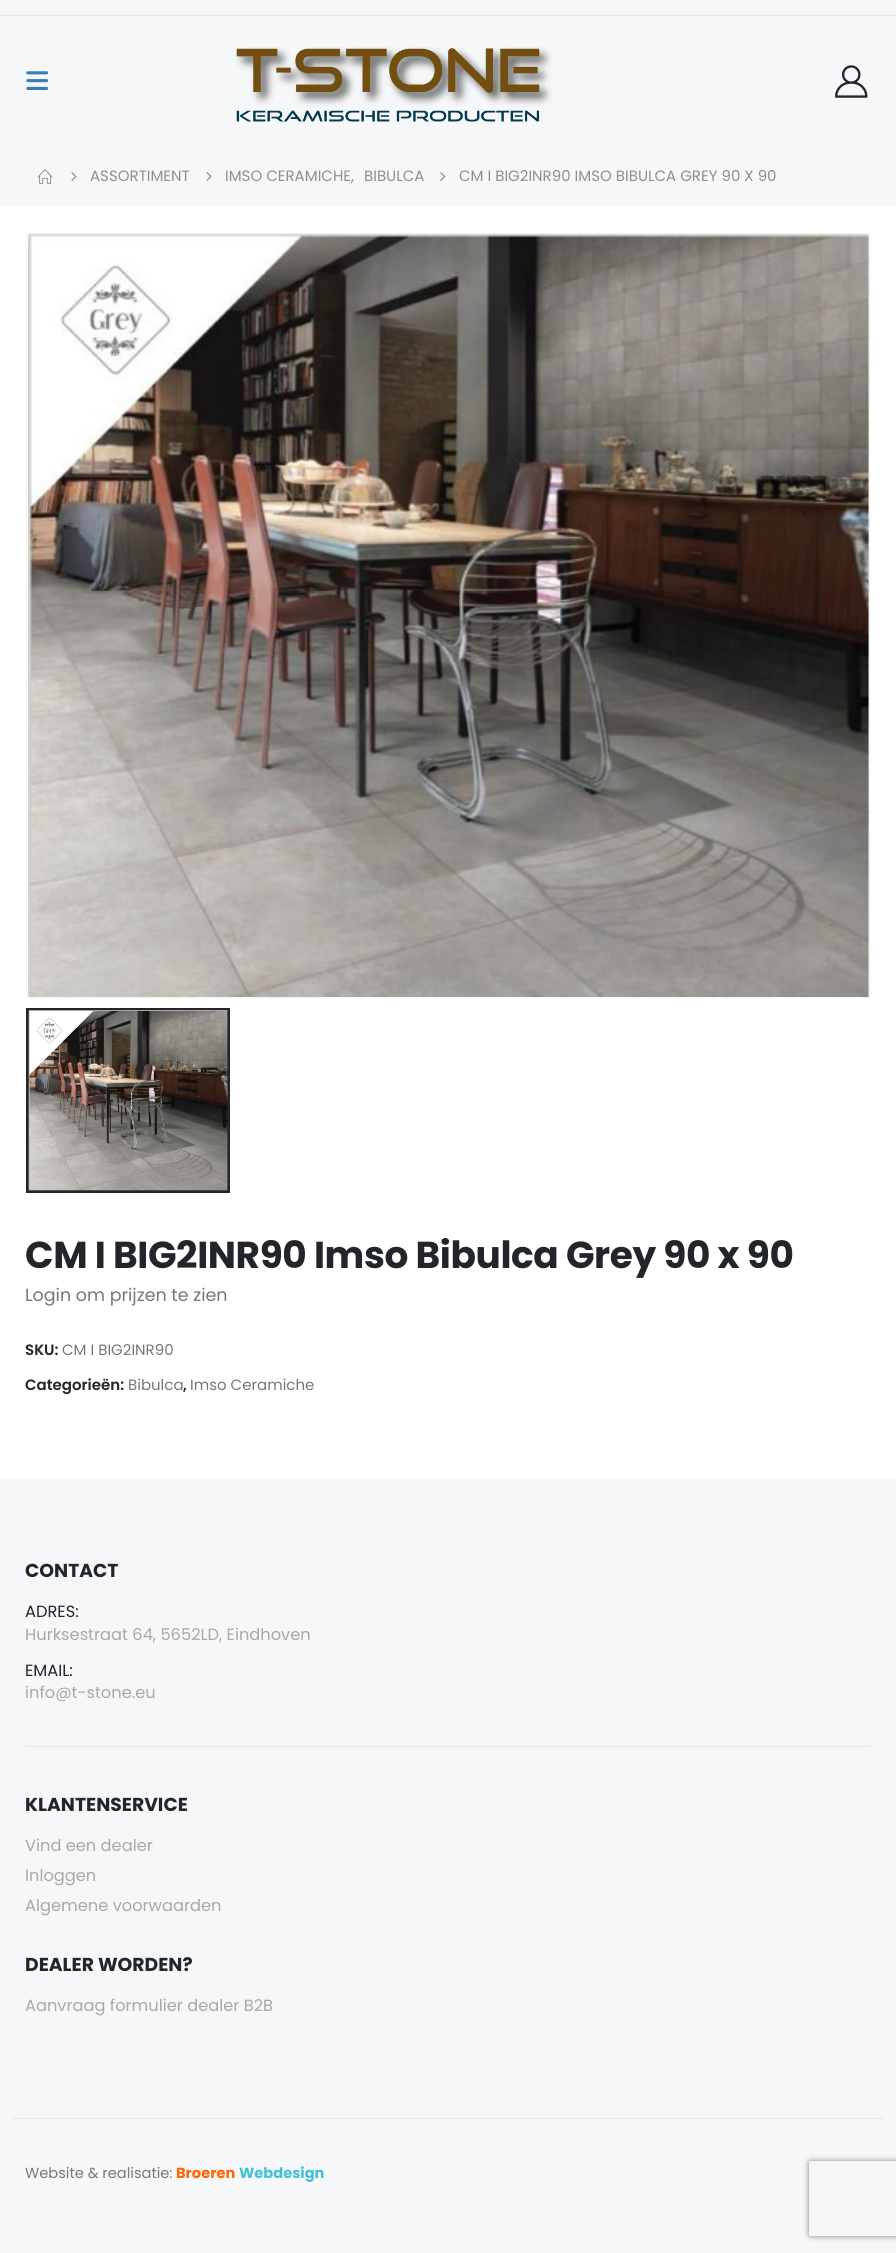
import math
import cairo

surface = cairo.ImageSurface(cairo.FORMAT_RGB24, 896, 2253)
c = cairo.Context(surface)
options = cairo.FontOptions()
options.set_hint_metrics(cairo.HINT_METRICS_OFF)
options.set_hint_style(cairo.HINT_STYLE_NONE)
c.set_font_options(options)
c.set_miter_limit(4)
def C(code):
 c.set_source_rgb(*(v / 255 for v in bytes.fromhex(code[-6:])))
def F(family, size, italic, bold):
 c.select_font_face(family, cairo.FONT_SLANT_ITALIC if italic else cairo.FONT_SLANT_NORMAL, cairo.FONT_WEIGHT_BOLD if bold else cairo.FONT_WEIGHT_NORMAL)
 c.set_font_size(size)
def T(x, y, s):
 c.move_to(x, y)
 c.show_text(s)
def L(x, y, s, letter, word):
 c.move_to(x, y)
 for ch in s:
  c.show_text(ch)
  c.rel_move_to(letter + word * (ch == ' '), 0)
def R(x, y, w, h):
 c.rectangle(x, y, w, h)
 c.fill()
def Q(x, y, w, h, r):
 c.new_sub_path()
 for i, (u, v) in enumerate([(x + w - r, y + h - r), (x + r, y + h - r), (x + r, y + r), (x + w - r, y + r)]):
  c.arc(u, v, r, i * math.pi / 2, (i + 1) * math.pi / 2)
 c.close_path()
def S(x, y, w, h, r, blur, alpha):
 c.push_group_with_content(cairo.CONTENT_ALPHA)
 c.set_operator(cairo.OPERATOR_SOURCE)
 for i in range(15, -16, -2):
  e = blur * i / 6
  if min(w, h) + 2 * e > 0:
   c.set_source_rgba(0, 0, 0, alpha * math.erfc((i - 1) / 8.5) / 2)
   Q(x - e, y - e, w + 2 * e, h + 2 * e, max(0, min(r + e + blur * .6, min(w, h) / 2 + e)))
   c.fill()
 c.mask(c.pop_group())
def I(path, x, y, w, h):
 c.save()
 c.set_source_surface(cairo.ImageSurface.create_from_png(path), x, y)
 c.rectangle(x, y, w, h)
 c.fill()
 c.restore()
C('f6f7f9')
c.paint()
C('e7e7e7')
R(0,15,896,1)
I('1.png',26,71,23,19)
I('2.png',235,47,317,75)
I('3.png',835,65,33,33)
I('4.png',37,169,16,15)
I('5.png',71,172,6,9)
F('Poppins',15,0,0)
C('8e8e8e')
T(90,181,'ASSORTIMENT')
I('5.png',206,172,6,9)
T(225,181,'IMSO CERAMICHE,')
T(364,181,'BIBULCA')
I('6.png',440,172,6,9)
T(459,181,'CM I BIG2INR90 IMSO BIBULCA GREY 90 X 90')
C('ffffff')
R(0,206,896,1272)
c.rectangle(26.5,233.5,843,764)
C('f4f4f4')
c.set_line_width(1)
c.stroke()
I('7.png',28,234,841,763)
c.rectangle(27.5,1009.5,201,182)
C('222529')
c.set_line_width(3)
c.stroke()
I('8.png',28,1010,200,181)
F('Poppins',37.5,0,1)
L(25,1268,'CM I BIG2INR90 Imso Bibulca Grey 90 x 90',-.4,0)
F('Poppins',17.5,0,0)
C('777777')
T(25,1301,'Login om prijzen te zien')
F('Poppins SemiBold',15,0,0)
C('222529')
T(25,1355,'SKU:')
F('Poppins',15,0,0)
C('777777')
T(62,1355,'CM I BIG2INR90')
F('Poppins SemiBold',15,0,0)
C('222529')
T(25,1390,'Categorieën:')
F('Poppins',15,0,0)
C('777777')
T(128,1390,'Bibulca')
F('Poppins SemiBold',15,0,0)
C('222529')
T(183,1390,',')
F('Poppins',15,0,0)
C('777777')
T(190,1390,'Imso Ceramiche')
F('Poppins',18.75,0,1)
C('222529')
T(25,1577,'CONTACT')
F('Poppins',16.25,0,0)
T(25,1617,'ADRES:')
C('a8a8a8')
T(25,1640,'Hurksestraat 64, 5652LD, Eindhoven')
C('222529')
T(25,1676,'EMAIL:')
C('a8a8a8')
T(25,1698,'info@t-stone.eu')
C('e7e7e7')
R(25,1746,846,1)
F('Poppins',18.75,0,1)
C('222529')
T(25,1811,'KLANTENSERVICE')
F('Poppins',16.25,0,0)
C('a8a8a8')
T(25,1851,'Vind een dealer')
T(25,1881,'Inloggen')
T(25,1911,'Algemene voorwaarden')
F('Poppins',18.75,0,1)
C('222529')
T(25,1971,'DEALER WORDEN?')
F('Poppins',16.25,0,0)
C('a8a8a8')
T(25,2011,'Aanvraag formulier dealer B2B')
C('e7e7e7')
R(13,2118,871,1)
F('Poppins',14.6,0,0)
C('777777')
T(25,2178,'Website & realisatie:')
F('Poppins',14.6,0,1)
C('ff6600')
T(176,2178,'Broeren')
C('44c1d7')
T(239,2178,'Webdesign')
c.save()
c.set_fill_rule(cairo.FILL_RULE_EVEN_ODD)
c.new_path()
c.move_to(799,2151)
c.line_to(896,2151)
c.line_to(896,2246)
c.line_to(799,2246)
c.close_path()
c.move_to(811.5,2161)
c.line_to(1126.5,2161)
c.curve_to(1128,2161,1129,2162,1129,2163.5)
c.line_to(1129,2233.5)
c.curve_to(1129,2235,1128,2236,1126.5,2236)
c.line_to(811.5,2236)
c.curve_to(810,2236,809,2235,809,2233.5)
c.line_to(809,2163.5)
c.curve_to(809,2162,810,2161,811.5,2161)
c.close_path()
c.clip()
C('808080')
S(809,2161,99,75,2.5,3,1)
c.restore()
surface.write_to_png('o.png')
